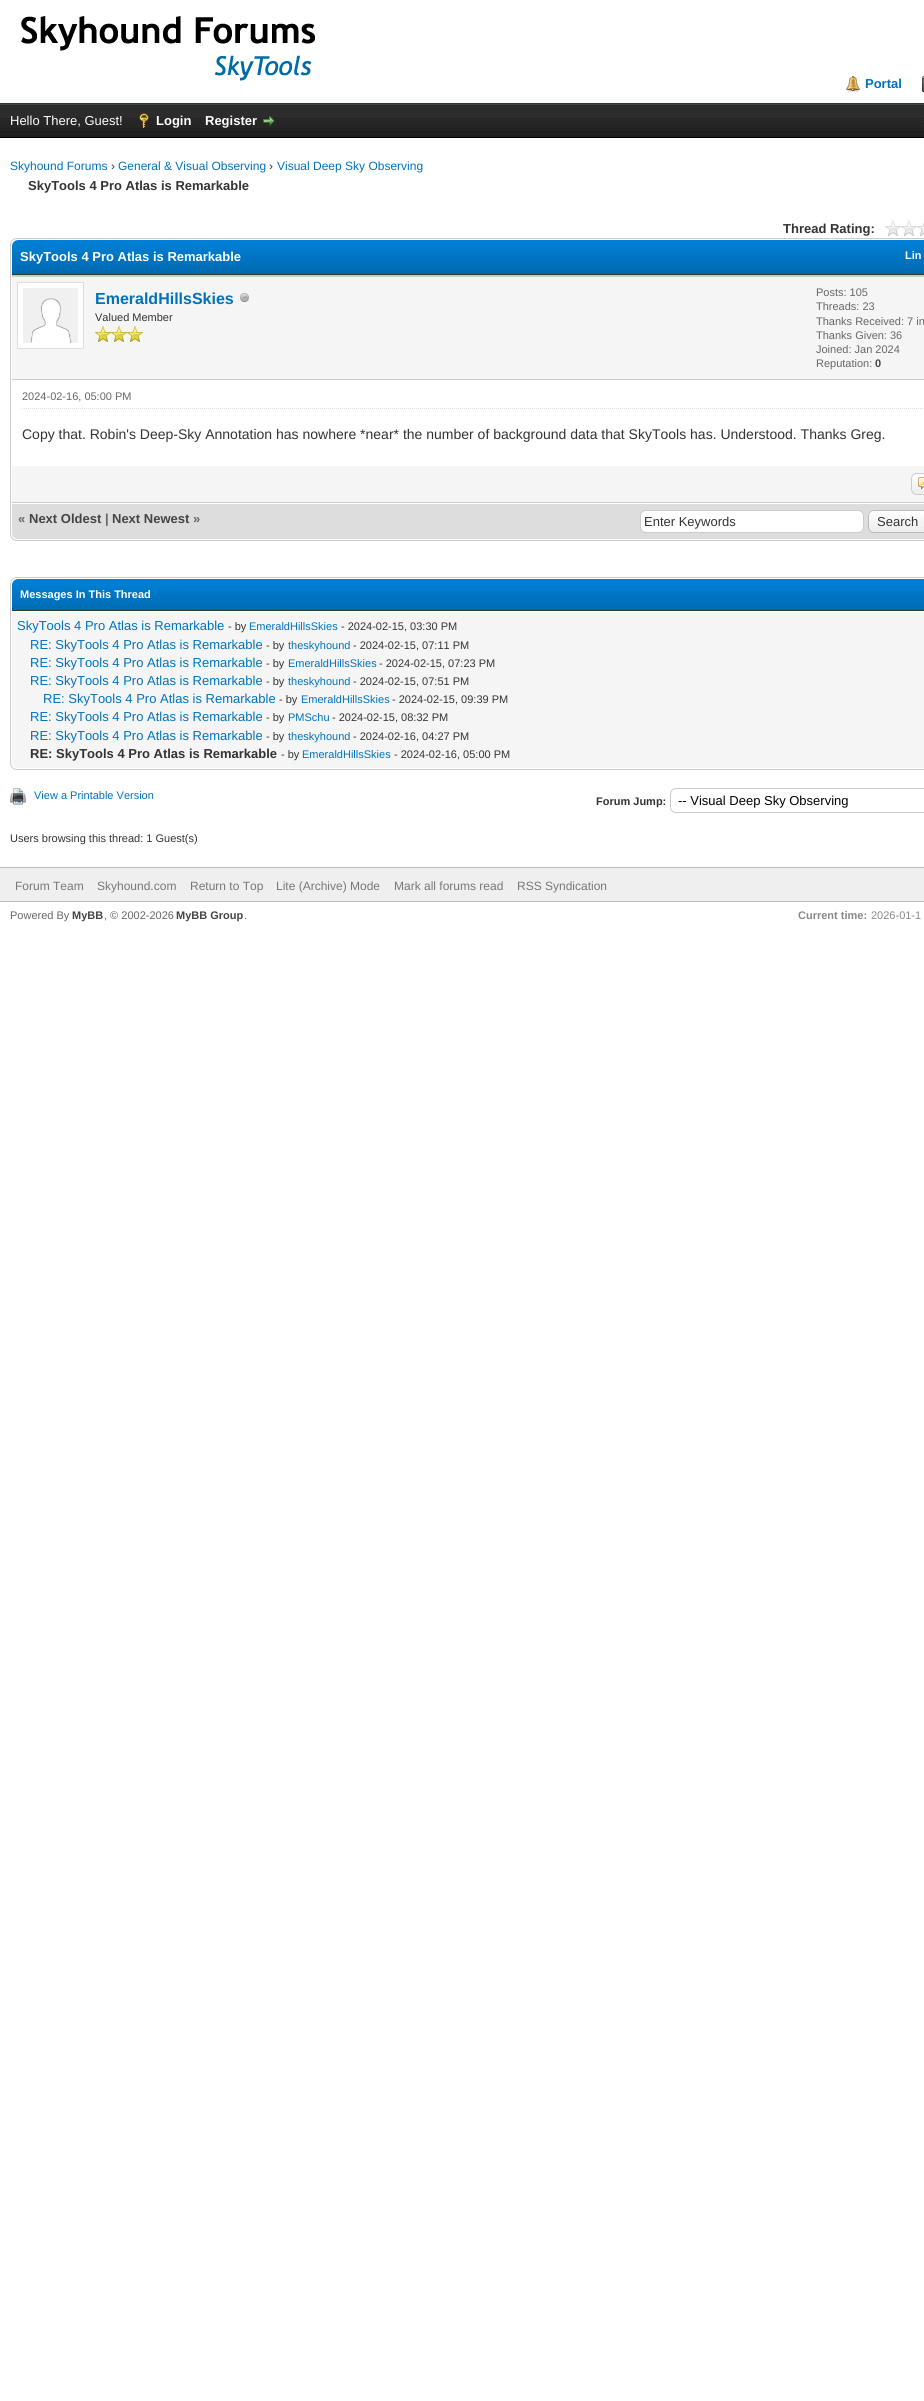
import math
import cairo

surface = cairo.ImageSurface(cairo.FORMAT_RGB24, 924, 2401)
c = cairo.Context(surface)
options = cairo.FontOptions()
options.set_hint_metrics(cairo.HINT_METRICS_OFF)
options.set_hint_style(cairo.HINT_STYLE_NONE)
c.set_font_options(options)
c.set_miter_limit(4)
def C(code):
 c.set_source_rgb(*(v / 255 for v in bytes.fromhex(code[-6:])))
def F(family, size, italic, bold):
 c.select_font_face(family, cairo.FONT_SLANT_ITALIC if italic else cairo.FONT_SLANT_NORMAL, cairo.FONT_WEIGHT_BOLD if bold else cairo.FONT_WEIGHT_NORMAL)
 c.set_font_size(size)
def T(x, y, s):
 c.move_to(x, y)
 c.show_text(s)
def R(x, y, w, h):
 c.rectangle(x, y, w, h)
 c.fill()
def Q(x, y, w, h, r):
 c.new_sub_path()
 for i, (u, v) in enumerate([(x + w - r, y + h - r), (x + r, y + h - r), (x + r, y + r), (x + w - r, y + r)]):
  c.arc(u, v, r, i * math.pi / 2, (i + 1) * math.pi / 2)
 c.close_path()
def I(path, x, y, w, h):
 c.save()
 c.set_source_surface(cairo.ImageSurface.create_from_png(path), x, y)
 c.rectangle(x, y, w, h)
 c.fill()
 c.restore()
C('ffffff')
c.paint()
C('263c30')
R(0,103,924,1)
I('1.png',21,16,294,65)
I('2.png',846,76,14,16)
F('Liberation Sans',13,0,1)
C('0072bc')
T(865,88,'Portal')
I('3.png',922,76,2,16)
I('4.png',0,105,924,32)
C('444444')
R(0,104,924,1)
C('000000')
R(0,137,924,1)
F('Liberation Sans',13,0,0)
C('ffffff')
T(10,125,'Hello There, Guest!')
I('5.png',139,113,10,15)
F('Liberation Sans',13,0,1)
T(156,125,'Login')
T(205,125,'Register')
I('6.png',263,116,12,10)
F('Liberation Sans',12,0,0)
C('0072bc')
T(10,170,'Skyhound Forums')
C('333333')
T(111,170,'›')
C('0072bc')
T(118,170,'General & Visual Observing')
C('333333')
T(269,170,'›')
C('0072bc')
T(277,170,'Visual Deep Sky Observing')
F('Liberation Sans',13,0,1)
C('333333')
T(28,190,'SkyTools 4 Pro Atlas is Remarkable')
T(783,233,'Thread Rating:')
I('7.png',885,220,39,16)
Q(10.5,238.5,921,302,6.5)
C('cccccc')
c.set_line_width(1)
c.stroke()
I('8.png',12,240,912,34)
C('263c30')
R(12,274,912,1)
C('ffffff')
T(20,261,'SkyTools 4 Pro Atlas is Remarkable')
F('Liberation Sans',11,0,1)
T(905,259,'Lin')
C('f5f5f5')
R(12,277,912,102)
C('cccccc')
R(12,275,912,2)
R(12,379,912,1)
C('ffffff')
c.rectangle(17.5,282.5,66,66)
c.fill_preserve()
C('dddddd')
c.stroke()
I('9.png',23,288,55,55)
F('Liberation Sans',16,0,1)
C('0072bc')
T(95,304,'EmeraldHillsSkies')
I('10.png',240,293,9,9)
F('Liberation Sans',11,0,0)
C('333333')
T(95,321,'Valued Member')
I('11.png',95,326,16,16)
I('11.png',111,326,16,16)
I('11.png',127,326,16,16)
C('666666')
T(816,296,'Posts: 105')
T(816,310,'Threads: 23')
T(816,325,'Thanks Received: 7 in')
T(816,339,'Thanks Given: 36')
T(816,353,'Joined: Jan 2024')
T(816,367,'Reputation:')
F('Liberation Sans',11,0,1)
C('444444')
T(875,367,'0')
c.new_path()
c.move_to(22,408.5)
c.line_to(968,408.5)
C('dddddd')
c.set_dash([1,1])
c.stroke()
F('Liberation Sans',11,0,0)
C('666666')
T(22,400,'2024-02-16, 05:00 PM')
F('Liberation Sans',14,0,0)
C('333333')
T(22,439,'Copy that. Robin\'s Deep-Sky Annotation has nowhere *near* the number of background data that SkyTools has. Understood. Thanks Greg.')
C('f5f5f5')
R(12,466,912,36)
C('cccccc')
R(12,502,912,1)
C('eeeeee')
Q(911,473,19,22,6)
c.fill()
I('12.png',911,474,13,15)
Q(911.5,473.5,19,21,5.5)
C('cccccc')
c.set_dash([])
c.stroke()
I('13.png',918,477,6,12)
C('dddddd')
c.new_path()
c.move_to(12,503)
c.line_to(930,503)
c.line_to(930,533)
c.curve_to(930,536.5,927.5,539,924,539)
c.line_to(18,539)
c.curve_to(14.5,539,12,536.5,12,533)
c.close_path()
c.fill()
C('ffffff')
R(12,503,912,1)
F('Liberation Sans',13,0,1)
C('666666')
T(18,523,'«')
C('444444')
T(29,523,'Next Oldest')
C('666666')
T(105,523,'|')
C('444444')
T(112,523,'Next Newest')
C('666666')
T(193,523,'»')
C('ffffff')
Q(640.5,510.5,223,22,5.5)
c.fill_preserve()
C('cccccc')
c.stroke()
F('Liberation Sans',13,0,0)
C('333333')
T(644,526,'Enter Keywords')
C('eeeeee')
Q(868,510,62,23,6)
c.fill()
I('14.png',868,511,56,18)
Q(868.5,510.5,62,22,5.5)
C('bbbbbb')
c.stroke()
C('333333')
T(877,526,'Search')
Q(10.5,577.5,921,192,6.5)
C('cccccc')
c.stroke()
I('15.png',12,579,912,31)
C('263c30')
R(12,610,912,1)
F('Liberation Sans',11,0,1)
C('ffffff')
T(20,598,'Messages In This Thread')
C('f5f5f5')
c.new_path()
c.move_to(12,611)
c.line_to(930,611)
c.line_to(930,762)
c.curve_to(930,765.5,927.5,768,924,768)
c.line_to(18,768)
c.curve_to(14.5,768,12,765.5,12,762)
c.close_path()
c.fill()
C('ffffff')
R(12,611,912,1)
F('Liberation Sans',13,0,0)
C('0072bc')
T(17,630,'SkyTools 4 Pro Atlas is Remarkable')
F('Liberation Sans',11,0,0)
C('333333')
T(228,630,'- by')
C('0072bc')
T(249,630,'EmeraldHillsSkies')
C('333333')
T(341,630,'- 2024-02-15, 03:30 PM')
F('Liberation Sans',13,0,0)
C('0072bc')
T(30,649,'RE: SkyTools 4 Pro Atlas is Remarkable')
F('Liberation Sans',11,0,0)
C('333333')
T(266,649,'- by')
C('0072bc')
T(288,649,'theskyhound')
C('333333')
T(353,649,'- 2024-02-15, 07:11 PM')
F('Liberation Sans',13,0,0)
C('0072bc')
T(30,667,'RE: SkyTools 4 Pro Atlas is Remarkable')
F('Liberation Sans',11,0,0)
C('333333')
T(266,667,'- by')
C('0072bc')
T(288,667,'EmeraldHillsSkies')
C('333333')
T(379,667,'- 2024-02-15, 07:23 PM')
F('Liberation Sans',13,0,0)
C('0072bc')
T(30,685,'RE: SkyTools 4 Pro Atlas is Remarkable')
F('Liberation Sans',11,0,0)
C('333333')
T(266,685,'- by')
C('0072bc')
T(288,685,'theskyhound')
C('333333')
T(353,685,'- 2024-02-15, 07:51 PM')
F('Liberation Sans',13,0,0)
C('0072bc')
T(43,703,'RE: SkyTools 4 Pro Atlas is Remarkable')
F('Liberation Sans',11,0,0)
C('333333')
T(279,703,'- by')
C('0072bc')
T(301,703,'EmeraldHillsSkies')
C('333333')
T(392,703,'- 2024-02-15, 09:39 PM')
F('Liberation Sans',13,0,0)
C('0072bc')
T(30,721,'RE: SkyTools 4 Pro Atlas is Remarkable')
F('Liberation Sans',11,0,0)
C('333333')
T(266,721,'- by')
C('0072bc')
T(288,721,'PMSchu')
C('333333')
T(332,721,'- 2024-02-15, 08:32 PM')
F('Liberation Sans',13,0,0)
C('0072bc')
T(30,740,'RE: SkyTools 4 Pro Atlas is Remarkable')
F('Liberation Sans',11,0,0)
C('333333')
T(266,740,'- by')
C('0072bc')
T(288,740,'theskyhound')
C('333333')
T(353,740,'- 2024-02-16, 04:27 PM')
F('Liberation Sans',13,0,1)
T(30,758,'RE: SkyTools 4 Pro Atlas is Remarkable')
F('Liberation Sans',11,0,0)
T(281,758,'- by')
C('0072bc')
T(302,758,'EmeraldHillsSkies')
C('333333')
T(394,758,'- 2024-02-16, 05:00 PM')
I('16.png',10,788,16,17)
C('0072bc')
T(34,799,'View a Printable Version')
F('Liberation Sans',11,0,1)
C('333333')
T(596,805,'Forum Jump:')
Q(670.5,788.5,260,24,5.5)
C('cccccc')
c.stroke()
F('Liberation Sans',13,0,0)
C('000000')
T(678,805,'-- Visual Deep Sky Observing')
F('Liberation Sans',11,0,0)
C('333333')
T(10,842,'Users browsing this thread: 1 Guest(s)')
C('efefef')
R(0,868,924,33)
C('bbbbbb')
R(0,867,924,1)
R(0,901,924,1)
F('Liberation Sans',12,0,0)
C('777777')
T(15,890,'Forum Team')
T(97,890,'Skyhound.com')
T(190,890,'Return to Top')
T(276,890,'Lite (Archive) Mode')
T(394,890,'Mark all forums read')
T(517,890,'RSS Syndication')
F('Liberation Sans',11,0,0)
C('666666')
T(10,919,'Powered By')
F('Liberation Sans',11,0,1)
C('444444')
T(72,919,'MyBB')
F('Liberation Sans',11,0,0)
C('666666')
T(104,919,', © 2002-2026')
F('Liberation Sans',11,0,1)
C('444444')
T(176,919,'MyBB Group')
F('Liberation Sans',11,0,0)
C('666666')
T(244,919,'.')
F('Liberation Sans',11,0,1)
C('888888')
T(798,919,'Current time:')
F('Liberation Sans',11,0,0)
T(871,919,'2026-01-1')
surface.write_to_png('o.png')
